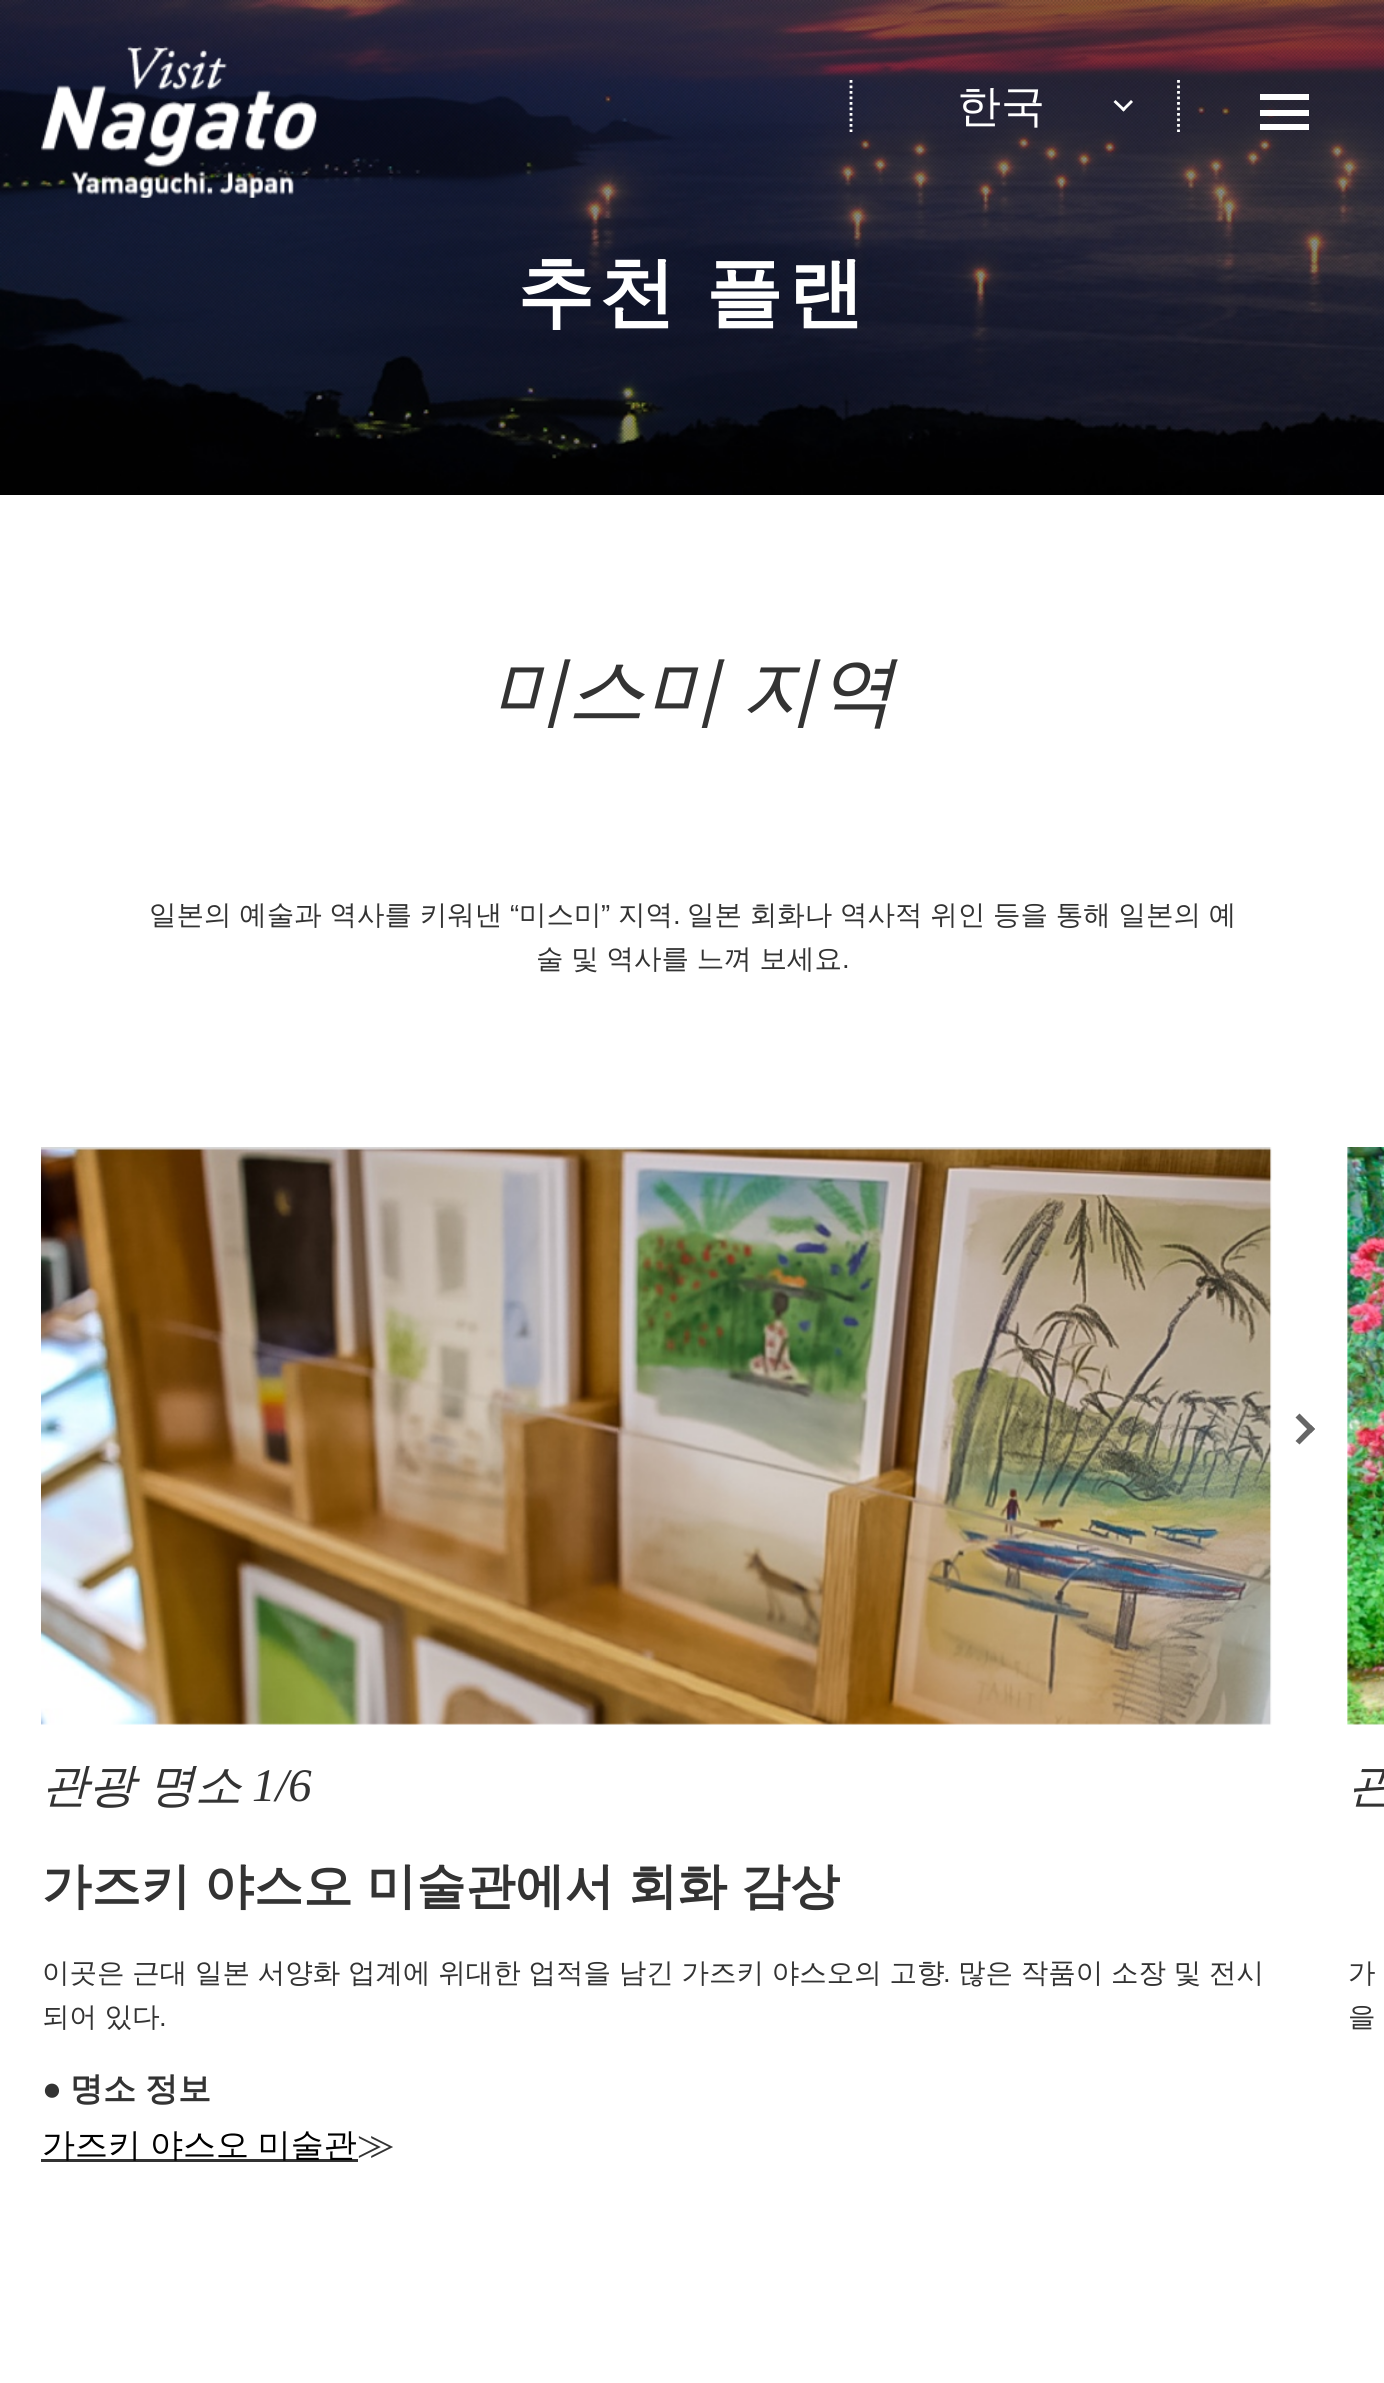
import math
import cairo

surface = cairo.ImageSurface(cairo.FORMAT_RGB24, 1384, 2383)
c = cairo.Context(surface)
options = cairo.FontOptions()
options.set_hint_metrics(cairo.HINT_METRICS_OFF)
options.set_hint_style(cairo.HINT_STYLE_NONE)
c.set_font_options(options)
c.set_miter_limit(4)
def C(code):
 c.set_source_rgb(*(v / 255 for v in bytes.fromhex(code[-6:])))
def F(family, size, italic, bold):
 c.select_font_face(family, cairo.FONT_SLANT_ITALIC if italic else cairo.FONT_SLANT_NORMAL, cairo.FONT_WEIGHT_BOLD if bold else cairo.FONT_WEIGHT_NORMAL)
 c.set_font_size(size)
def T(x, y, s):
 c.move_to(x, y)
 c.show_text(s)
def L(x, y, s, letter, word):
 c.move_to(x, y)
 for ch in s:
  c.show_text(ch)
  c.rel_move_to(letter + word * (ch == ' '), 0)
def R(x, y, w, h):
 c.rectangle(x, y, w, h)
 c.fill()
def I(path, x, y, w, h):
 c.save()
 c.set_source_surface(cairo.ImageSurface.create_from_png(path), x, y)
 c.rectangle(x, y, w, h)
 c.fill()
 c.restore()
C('ffffff')
c.paint()
I('2.png',0,0,1384,495)
I('1.png',41,46,276,152)
c.new_path()
c.move_to(1178.5,80)
c.line_to(1178.5,132)
C('ffffff')
c.set_line_width(2.8)
c.set_dash([2.75,2.75])
c.stroke()
c.new_path()
c.move_to(851,80)
c.line_to(851,132)
c.stroke()
F('WenQuanYi Zen Hei Medium',44,0,0)
T(957,121,'한국')
c.new_path()
c.move_to(1133,102)
c.line_to(1123.5,111.5)
c.line_to(1121.5,109.5)
c.line_to(1131,100)
c.close_path()
c.fill()
c.new_path()
c.move_to(1125.5,109.5)
c.line_to(1123.5,111.5)
c.line_to(1113.5,102)
c.line_to(1115.5,100)
c.close_path()
c.fill()
R(1260,110,49,6)
R(1260,94,49,6)
R(1260,124,49,6)
F('WenQuanYi Zen Hei',77,0,1)
L(517,319,'추천 플랜',4.5,-2)
F('WenQuanYi Zen Hei Medium',77,1,0)
C('333333')
L(491,717,'미스미 지역',0,-4)
F('WenQuanYi Zen Hei Medium',27.5,0,0)
L(149,924,'일본의 예술과 역사를 키워낸',0,-.5)
F('Liberation Sans',27.5,0,0)
T(510,924,'“')
F('WenQuanYi Zen Hei Medium',27.5,0,0)
T(519,924,'미스미')
F('Liberation Sans',27.5,0,0)
T(601,924,'”')
F('WenQuanYi Zen Hei Medium',27.5,0,0)
T(618,924,'지역')
L(687,924,'일본 회화나 역사적 위인 등을 통해 일본의 예',0,-.5)
F('Liberation Sans',27.5,0,0)
T(673,924,'.')
F('WenQuanYi Zen Hei Medium',27.5,0,0)
L(536,968,'술 및 역사를 느껴 보세요',0,-.5)
F('Liberation Sans',27.5,0,0)
T(842,968,'.')
C('666666')
c.new_path()
c.move_to(1299.5,1413.5)
c.line_to(1315,1429)
c.line_to(1311,1433)
c.line_to(1295.5,1417.5)
c.close_path()
c.fill()
c.new_path()
c.move_to(1311,1425)
c.line_to(1315,1429)
c.line_to(1299.5,1444.5)
c.line_to(1295.5,1441)
c.close_path()
c.fill()
I('3.png',41,1147,1231,578)
F('WenQuanYi Zen Hei Medium',46.75,1,0)
C('333333')
L(42,1801,'관광 명소',0,-1)
F('Liberation Serif',46.75,1,0)
T(252,1801,'1/6')
F('WenQuanYi Zen Hei',49.5,0,1)
L(42,1903,'가즈키 야스오 미술관에서 회화 감상',0,-1)
F('WenQuanYi Zen Hei Medium',27.5,0,0)
L(42,1982,'이곳은 근대 일본 서양화 업계에 위대한 업적을 남긴 가즈키 야스오의 고향',0,-.5)
F('Liberation Sans',27.5,0,0)
T(943,1982,'.')
F('WenQuanYi Zen Hei Medium',27.5,0,0)
L(958,1982,'많은 작품이 소장 및 전시',0,-.5)
L(42,2026,'되어 있다',0,-.5)
F('Liberation Sans',27.5,0,0)
T(159,2026,'.')
F('Liberation Sans',33,0,1)
T(42,2100,'●')
F('WenQuanYi Zen Hei',33,0,1)
L(70,2100,'명소 정보',0,-1)
R(41,2159,317,3)
F('WenQuanYi Zen Hei Medium',33,0,0)
C('000000')
L(42,2156,'가즈키 야스오 미술관',0,-1)
F('WenQuanYi Zen Hei Medium',38,0,0)
C('333333')
T(357,2158,'≫')
I('4.png',1347,1147,37,578)
F('WenQuanYi Zen Hei Medium',46.75,1,0)
L(1348,1801,'관',0,-1)
F('WenQuanYi Zen Hei Medium',27.5,0,0)
L(1348,1982,'가',0,-1)
L(1348,2026,'을',0,-.5)
surface.write_to_png('o.png')
